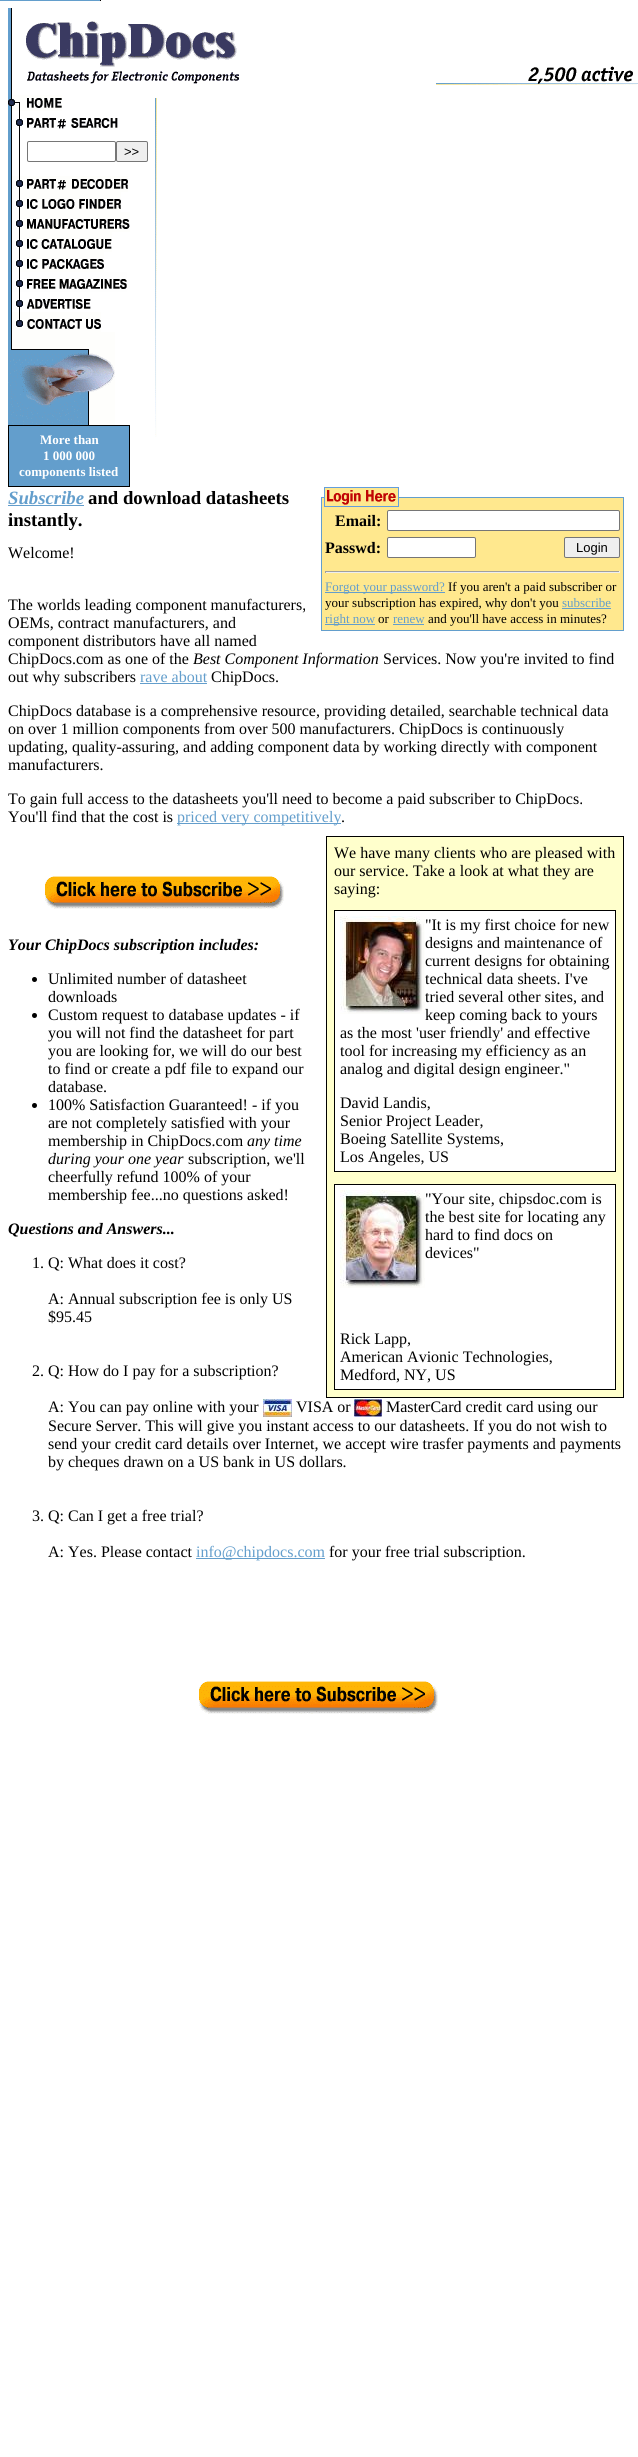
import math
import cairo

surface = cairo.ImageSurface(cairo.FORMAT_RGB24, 638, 2457)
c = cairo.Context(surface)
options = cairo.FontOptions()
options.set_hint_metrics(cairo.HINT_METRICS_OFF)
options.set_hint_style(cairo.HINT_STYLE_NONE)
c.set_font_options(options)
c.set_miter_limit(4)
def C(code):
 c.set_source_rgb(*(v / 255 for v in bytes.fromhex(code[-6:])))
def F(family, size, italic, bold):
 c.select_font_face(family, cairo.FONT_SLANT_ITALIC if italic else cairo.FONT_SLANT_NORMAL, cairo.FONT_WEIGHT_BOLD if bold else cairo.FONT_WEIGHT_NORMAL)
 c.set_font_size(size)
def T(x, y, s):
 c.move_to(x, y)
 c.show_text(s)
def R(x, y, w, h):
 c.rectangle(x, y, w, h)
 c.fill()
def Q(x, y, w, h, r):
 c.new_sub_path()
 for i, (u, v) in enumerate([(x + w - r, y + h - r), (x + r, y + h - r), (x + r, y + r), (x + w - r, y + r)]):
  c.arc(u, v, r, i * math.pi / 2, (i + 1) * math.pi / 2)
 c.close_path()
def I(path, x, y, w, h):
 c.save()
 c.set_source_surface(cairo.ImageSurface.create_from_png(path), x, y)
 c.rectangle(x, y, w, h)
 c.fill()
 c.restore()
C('ffffff')
c.paint()
I('1.png',0,0,101,1)
I('2.png',8,8,231,87)
I('3.png',436,66,202,19)
I('4.png',8,95,54,16)
I('5.png',8,111,110,20)
I('6.png',8,131,12,41)
Q(27.5,141.5,88,20,1.5)
C('767676')
c.set_line_width(1)
c.stroke()
C('efefef')
Q(116.5,141.5,31,20,1.5)
c.fill_preserve()
C('767676')
c.stroke()
F('Liberation Sans',13,0,0)
C('000000')
T(124,156,'>>')
I('7.png',8,172,120,20)
I('8.png',8,192,113,20)
I('9.png',8,212,122,20)
I('10.png',8,232,104,20)
I('11.png',8,252,96,20)
I('12.png',8,272,119,20)
I('13.png',8,292,83,20)
I('14.png',8,312,93,20)
I('15.png',8,332,107,93)
R(8,425,122,62)
C('639ecc')
R(9,426,120,60)
F('Liberation Serif',13,0,1)
C('ffffff')
T(40,444,'More than')
T(43,460,'1 000 000')
T(19,476,'components listed')
I('16.png',155,98,2,339)
F('Liberation Serif',18.75,1,1)
C('639ecc')
T(8,504,'Subscribe')
R(8,505,76,1)
F('Liberation Serif',18.75,0,1)
C('000000')
T(88,504,'and download datasheets')
T(8,526,'instantly.')
I('17.png',324,487,75,10)
I('18.png',321,497,78,10)
C('639ecc')
R(399,497,225,1)
C('ffe88e')
R(399,498,224,9)
C('639ecc')
R(623,498,1,132)
R(321,507,1,123)
C('ffe88e')
R(322,507,301,123)
F('Liberation Serif',16,0,1)
C('000000')
T(335,526,'Email:')
C('ffffff')
Q(387.5,510.5,232,20,1.5)
c.fill_preserve()
C('767676')
c.stroke()
C('000000')
T(325,553,'Passwd:')
C('ffffff')
Q(387.5,537.5,88,20,1.5)
c.fill_preserve()
C('767676')
c.stroke()
C('efefef')
Q(564.5,537.5,55,20,1.5)
c.fill_preserve()
C('767676')
c.stroke()
F('Liberation Sans',13,0,0)
C('000000')
T(576,552,'Login')
C('9f9f9f')
R(325,571,295,1)
C('eeeeee')
R(619,571,1,2)
R(325,572,295,1)
C('9f9f9f')
R(325,571,1,2)
C('639ecc')
R(325,592,120,1)
F('Liberation Serif',13,0,0)
T(325,591,'Forgot your password?')
C('000000')
T(448,591,'If you aren\'t a paid subscriber or')
T(325,607,'your subscription has expired, why don\'t you')
C('639ecc')
T(562,607,'subscribe')
R(562,608,49,1)
R(325,624,50,1)
T(325,623,'right now')
C('000000')
T(378,623,'or')
C('639ecc')
T(393,623,'renew')
R(393,624,31,1)
C('000000')
T(428,623,'and you\'ll have access in minutes?')
C('639ecc')
R(321,630,303,1)
F('Liberation Serif',16,0,0)
C('000000')
T(8,558,'Welcome!')
T(8,610,'The worlds leading component manufacturers,')
T(8,628,'OEMs, contract manufacturers, and')
T(8,646,'component distributors have all named')
T(8,664,'ChipDocs.com as one of the')
F('Liberation Serif',16,1,0)
T(193,664,'Best Component Information')
F('Liberation Serif',16,0,0)
T(383,664,'Services. Now you\'re invited to find')
T(8,682,'out why subscribers')
C('639ecc')
T(140,682,'rave about')
R(140,683,67,1)
C('000000')
T(211,682,'ChipDocs.')
T(8,716,'ChipDocs database is a comprehensive resource, providing detailed, searchable technical data')
T(8,734,'on over 1 million components from over 500 manufacturers. ChipDocs is continuously')
T(8,752,'updating, quality-assuring, and adding component data by working directly with component')
T(8,770,'manufacturers.')
T(8,804,'To gain full access to the datasheets you\'ll need to become a paid subscriber to ChipDocs.')
T(8,822,'You\'ll find that the cost is')
C('639ecc')
R(177,823,164,1)
T(177,822,'priced very competitively')
C('000000')
T(341,822,'.')
R(326,836,298,562)
C('ffffcc')
R(327,837,296,560)
C('000000')
T(334,858,'We have many clients who are pleased with')
T(334,876,'our service. Take a look at what they are')
T(334,894,'saying:')
R(334,910,282,262)
C('ffffff')
R(335,911,280,260)
I('19.png',340,916,85,98)
C('000000')
T(425,930,'"It is my first choice for new')
T(425,948,'designs and maintenance of')
T(425,966,'current designs for obtaining')
T(425,984,'technical data sheets. I\'ve')
T(425,1002,'tried several other sites, and')
T(425,1020,'keep coming back to yours')
T(340,1038,'as the most \'user friendly\' and effective')
T(340,1056,'tool for increasing my efficiency as an')
T(340,1074,'analog and digital design engineer."')
T(340,1108,'David Landis,')
T(340,1126,'Senior Project Leader,')
T(340,1144,'Boeing Satellite Systems,')
T(340,1162,'Los Angeles, US')
R(334,1184,282,206)
C('ffffff')
R(335,1185,280,204)
I('20.png',340,1190,85,98)
C('000000')
T(425,1204,'"Your site, chipsdoc.com is')
T(425,1222,'the best site for locating any')
T(425,1240,'hard to find docs on')
T(425,1258,'devices"')
T(340,1344,'Rick Lapp,')
T(340,1362,'American Avionic Technologies,')
T(340,1380,'Medford, NY, US')
I('21.png',45,876,239,33)
F('Liberation Serif',16,1,1)
T(8,950,'Your ChipDocs subscription includes:')
c.new_path()
c.arc(34.5,979.5,2.5,0,2 * math.pi)
c.fill()
F('Liberation Serif',16,0,0)
T(48,984,'Unlimited number of datasheet')
T(48,1002,'downloads')
c.new_path()
c.arc(34.5,1015.5,2.5,0,2 * math.pi)
c.fill()
T(48,1020,'Custom request to database updates - if')
T(48,1038,'you will not find the datasheet for part')
T(48,1056,'you are looking for, we will do our best')
T(48,1074,'to find or create a pdf file to expand our')
T(48,1092,'database.')
c.new_path()
c.arc(34.5,1105.5,2.5,0,2 * math.pi)
c.fill()
T(48,1110,'100% Satisfaction Guaranteed! - if you')
T(48,1128,'are not completely satisfied with your')
T(48,1146,'membership in ChipDocs.com')
F('Liberation Serif',16,1,0)
T(247,1146,'any time')
T(48,1164,'during your one year')
F('Liberation Serif',16,0,0)
T(188,1164,'subscription, we\'ll')
T(48,1182,'cheerfully refund 100% of your')
T(48,1200,'membership fee...no questions asked!')
F('Liberation Serif',16,1,1)
T(8,1234,'Questions and Answers...')
F('Liberation Serif',16,0,0)
T(32,1268,'1. Q: What does it cost?')
T(48,1304,'A: Annual subscription fee is only US')
T(48,1322,'$95.45')
T(32,1376,'2. Q: How do I pay for a subscription?')
T(48,1412,'A: You can pay online with your')
I('22.png',263,1399,29,18)
T(296,1412,'VISA or')
I('23.png',354,1399,28,18)
T(386,1412,'MasterCard credit card using our')
T(48,1431,'Secure Server. This will give you instant access to our datasheets. If you do not wish to')
T(48,1449,'send your credit card details over Internet, we accept wire trasfer payments and payments')
T(48,1467,'by cheques drawn on a US bank in US dollars.')
T(32,1521,'3. Q: Can I get a free trial?')
T(48,1557,'A: Yes. Please contact')
C('639ecc')
R(196,1558,129,1)
T(196,1557,'info@chipdocs.com')
C('000000')
T(329,1557,'for your free trial subscription.')
I('21.png',199,1681,239,33)
surface.write_to_png('o.png')
